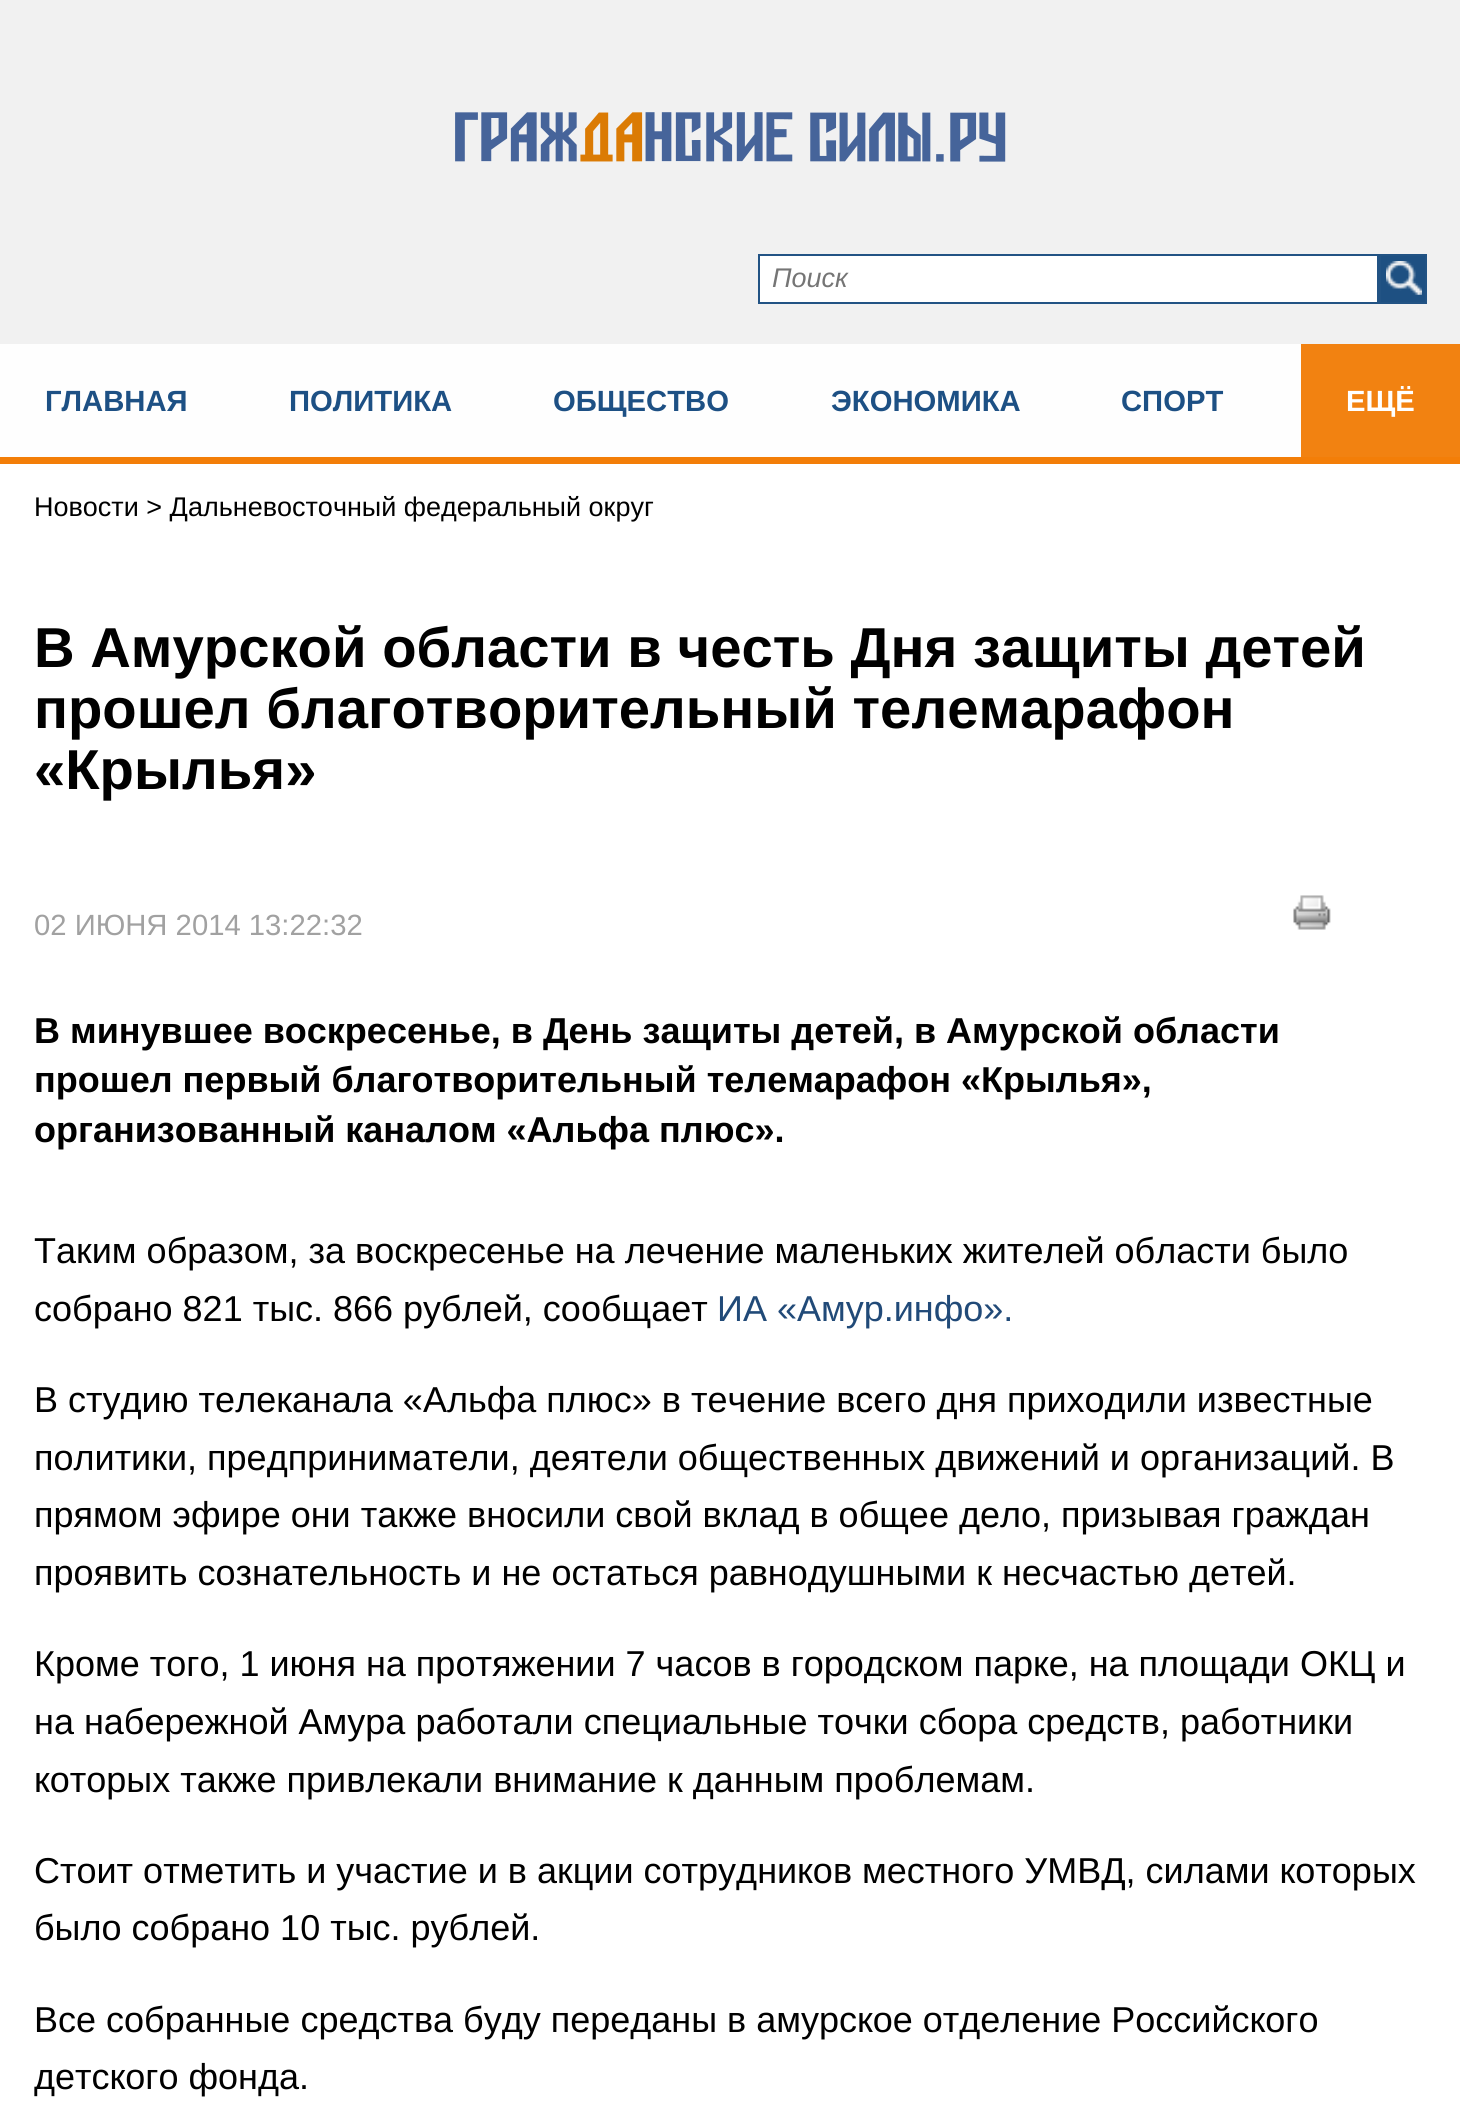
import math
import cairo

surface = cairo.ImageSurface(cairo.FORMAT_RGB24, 1460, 2126)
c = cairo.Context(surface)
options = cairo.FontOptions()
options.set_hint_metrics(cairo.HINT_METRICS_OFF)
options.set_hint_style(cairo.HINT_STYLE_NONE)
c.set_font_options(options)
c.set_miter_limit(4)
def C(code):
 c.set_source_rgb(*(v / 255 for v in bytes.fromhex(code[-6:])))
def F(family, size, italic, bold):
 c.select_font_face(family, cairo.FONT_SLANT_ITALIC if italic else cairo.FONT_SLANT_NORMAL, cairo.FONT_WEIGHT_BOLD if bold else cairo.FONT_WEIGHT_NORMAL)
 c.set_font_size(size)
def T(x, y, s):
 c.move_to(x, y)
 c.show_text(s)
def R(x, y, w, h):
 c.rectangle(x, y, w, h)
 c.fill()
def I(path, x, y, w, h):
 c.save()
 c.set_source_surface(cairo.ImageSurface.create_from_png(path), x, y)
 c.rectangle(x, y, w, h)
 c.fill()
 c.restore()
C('f1f1f1')
c.paint()
I('1.png',455,112,551,50)
C('ffffff')
c.rectangle(759,255,619,48)
c.fill_preserve()
C('225384')
c.stroke()
F('Liberation Sans',27,1,0)
C('757575')
T(772,287,'Поиск')
C('1e5082')
R(1381,256,44,46)
I('2.png',1386,261,36,34)
c.rectangle(1380,255,46,48)
C('225384')
c.stroke()
C('fefefe')
R(0,344,1301,113)
C('f37e08')
R(0,457,1460,7)
F('Liberation Sans',29.25,0,1)
C('1d5084')
T(45,411,'ГЛАВНАЯ')
T(289,411,'ПОЛИТИКА')
T(553,411,'ОБЩЕСТВО')
T(831,411,'ЭКОНОМИКА')
T(1121,411,'СПОРТ')
C('f28211')
R(1301,344,159,113)
C('ffffff')
T(1346,411,'ЕЩЁ')
R(0,464,1460,1662)
F('Liberation Sans',27,0,0)
C('000000')
T(34,516,'Новости > Дальневосточный федеральный округ')
F('Liberation Sans',56.25,0,1)
T(34,667,'В Амурской области в честь Дня защиты детей')
T(34,728,'прошел благотворительный телемарафон')
T(34,789,'«Крылья»')
I('3.png',1293,895,38,35)
F('Liberation Sans',29.25,0,0)
C('a1a1a1')
T(34,935,'02 ИЮНЯ 2014 13:22:32')
F('Liberation Sans',36,0,1)
C('000000')
T(34,1043,'В минувшее воскресенье, в День защиты детей, в Амурской области')
T(34,1092,'прошел первый благотворительный телемарафон «Крылья»,')
T(34,1142,'организованный каналом «Альфа плюс».')
F('Liberation Sans',36,0,0)
T(34,1263,'Таким образом, за воскресенье на лечение маленьких жителей области было')
T(34,1321,'собрано 821 тыс. 866 рублей, сообщает')
C('214a78')
T(717,1321,'ИА «Амур.инфо».')
C('000000')
T(34,1412,'В студию телеканала «Альфа плюс» в течение всего дня приходили известные')
T(34,1470,'политики, предприниматели, деятели общественных движений и организаций. В')
T(34,1527,'прямом эфире они также вносили свой вклад в общее дело, призывая граждан')
T(34,1585,'проявить сознательность и не остаться равнодушными к несчастью детей.')
T(34,1676,'Кроме того, 1 июня на протяжении 7 часов в городском парке, на площади ОКЦ и')
T(34,1734,'на набережной Амура работали специальные точки сбора средств, работники')
T(34,1792,'которых также привлекали внимание к данным проблемам.')
T(34,1883,'Стоит отметить и участие и в акции сотрудников местного УМВД, силами которых')
T(34,1940,'было собрано 10 тыс. рублей.')
T(34,2032,'Все собранные средства буду переданы в амурское отделение Российского')
T(34,2089,'детского фонда.')
surface.write_to_png('o.png')
